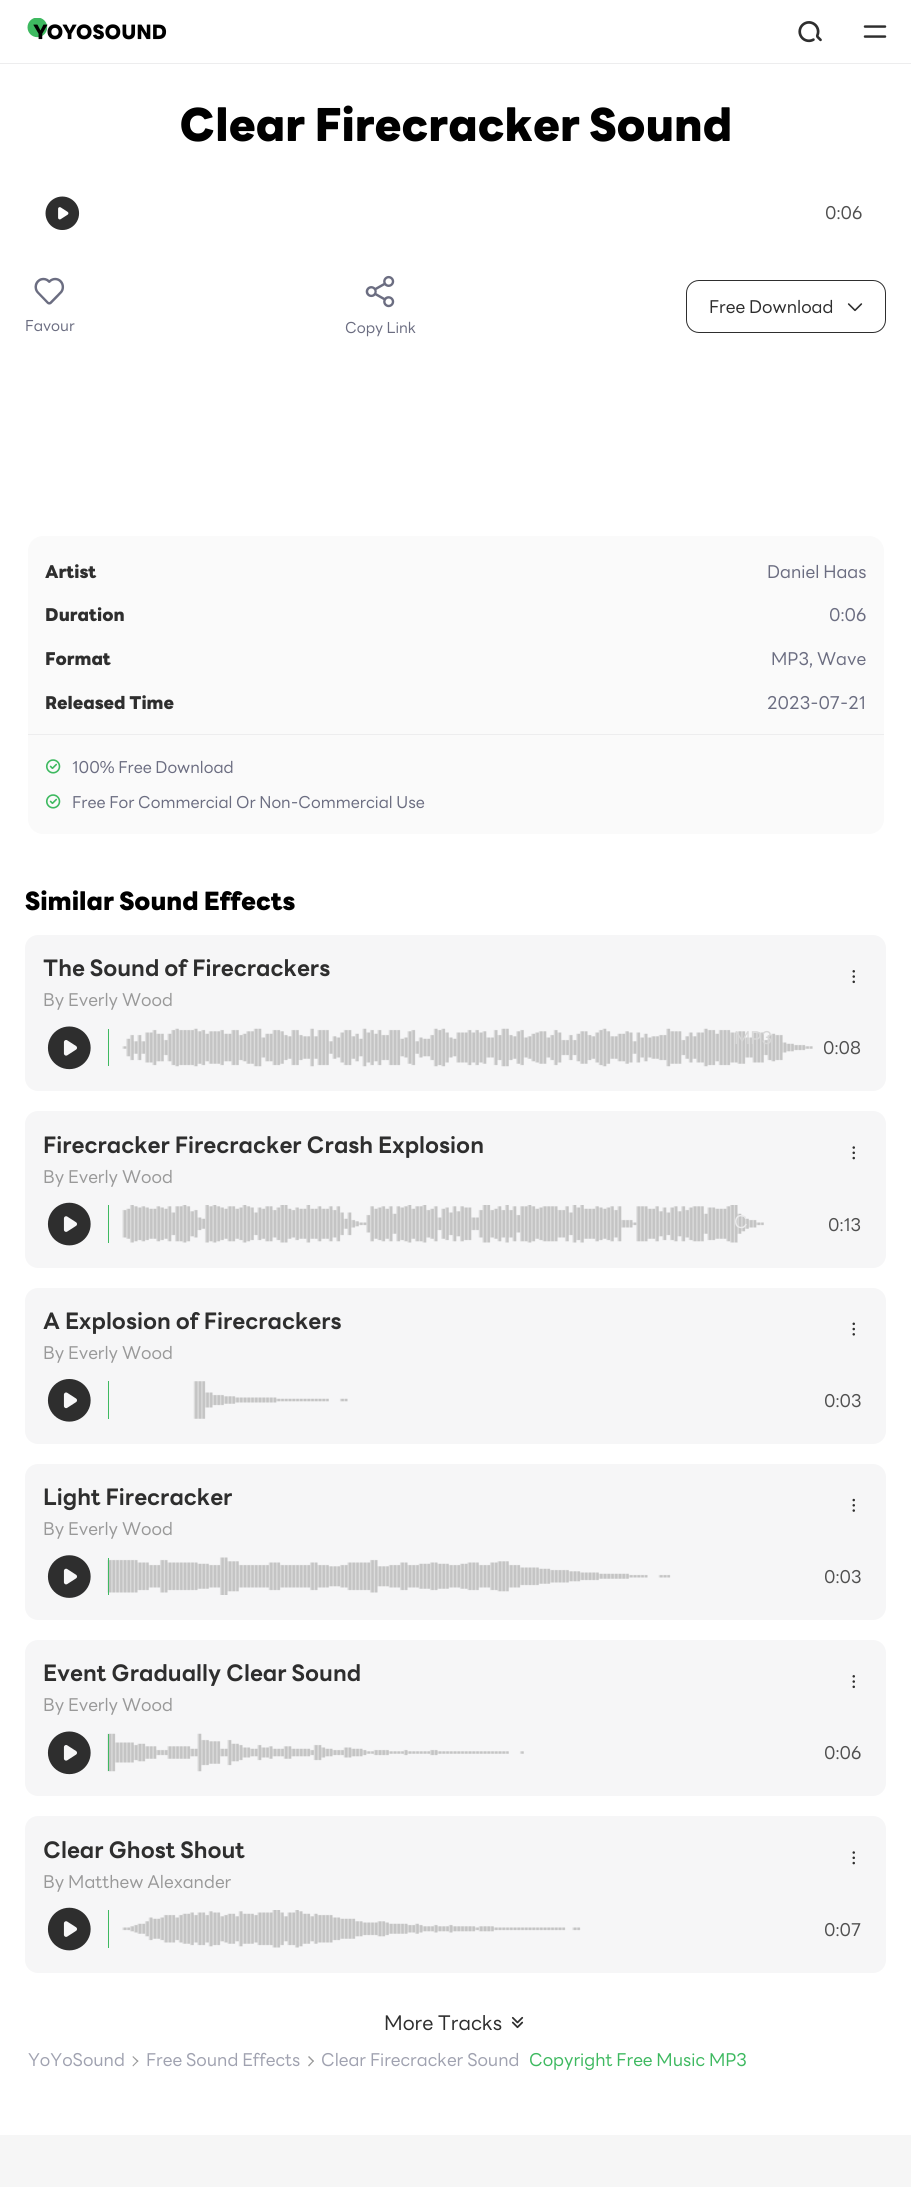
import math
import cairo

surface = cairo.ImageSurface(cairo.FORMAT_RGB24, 911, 2187)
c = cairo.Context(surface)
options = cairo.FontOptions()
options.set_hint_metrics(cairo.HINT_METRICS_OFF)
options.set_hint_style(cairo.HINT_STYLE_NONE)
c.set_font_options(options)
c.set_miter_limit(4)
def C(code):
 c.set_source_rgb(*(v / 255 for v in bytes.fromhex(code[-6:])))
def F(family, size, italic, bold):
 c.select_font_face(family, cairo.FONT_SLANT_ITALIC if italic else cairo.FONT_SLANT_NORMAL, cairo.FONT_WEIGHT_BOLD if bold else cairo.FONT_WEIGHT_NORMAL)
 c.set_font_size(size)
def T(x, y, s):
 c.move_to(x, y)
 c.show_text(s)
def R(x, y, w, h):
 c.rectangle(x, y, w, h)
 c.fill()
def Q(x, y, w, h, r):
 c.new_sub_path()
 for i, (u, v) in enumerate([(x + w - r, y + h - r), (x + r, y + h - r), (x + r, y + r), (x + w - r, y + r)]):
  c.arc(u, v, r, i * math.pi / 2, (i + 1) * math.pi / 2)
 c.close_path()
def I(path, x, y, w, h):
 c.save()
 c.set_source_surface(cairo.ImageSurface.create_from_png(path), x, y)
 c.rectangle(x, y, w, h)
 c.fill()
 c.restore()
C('f6f6f6')
c.paint()
C('ffffff')
R(0,0,911,63)
C('ededee')
R(0,63,911,1)
I('1.png',27,18,140,22)
I('2.png',798,21,24,22)
I('3.png',863,25,24,13)
C('ffffff')
R(0,64,911,2071)
F('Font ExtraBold',45,0,0)
C('000000')
T(179,141,'Clear Firecracker Sound')
I('4.png',45,196,35,34)
F('Font',17.5,0,0)
C('505050')
T(825,219,'0:06')
Q(686.5,280.5,199,52,12.5)
C('2e2e2e')
c.set_line_width(1)
c.stroke()
T(709,313,'Free Download')
I('5.png',847,303,16,9)
I('6.png',34,277,31,28)
F('Font',15,0,0)
C('6b6d81')
T(25,331,'Favour')
I('7.png',365,275,30,33)
T(345,333,'Copy Link')
C('fafafa')
Q(28,536,856,298,15)
c.fill()
F('Font ExtraBold',17.5,0,0)
C('2e2e2e')
T(45,578,'Artist')
F('Font',17.5,0,0)
C('6b6d81')
T(767,578,'Daniel Haas')
F('Font ExtraBold',17.5,0,0)
C('2e2e2e')
T(45,621,'Duration')
F('Font',17.5,0,0)
C('6b6d81')
T(829,621,'0:06')
F('Font ExtraBold',17.5,0,0)
C('2e2e2e')
T(45,665,'Format')
F('Font',17.5,0,0)
C('6b6d81')
T(771,665,'MP3, Wave')
F('Font ExtraBold',17.5,0,0)
C('2e2e2e')
T(45,709,'Released Time')
F('Font',17.5,0,0)
C('6b6d81')
T(767,709,'2023-07-21')
C('ededee')
R(28,734,856,1)
I('8.png',45,759,16,15)
F('Font',16.25,0,0)
C('6b6d81')
T(72,773,'100% Free Download')
I('8.png',45,794,16,15)
T(72,808,'Free For Commercial Or Non-Commercial Use')
F('Font ExtraBold',25,0,0)
C('000000')
T(25,910,'Similar Sound Effects')
C('f6f6f7')
Q(25,935,861,156,13)
c.fill()
F('Font',22.5,0,1)
C('2e2e2e')
T(43,976,'The Sound of Firecrackers')
F('Font',17.5,0,0)
C('999999')
T(43,1006,'By Everly Wood')
I('9.png',852,970,3,14)
I('11.png',122,1028,691,39)
C('d8d8d8')
T(734,1044,'MP3')
C('f6f6f7')
Q(25,1111,861,157,13)
c.fill()
I('14.png',122,1205,642,38)
C('eaeaeb')
T(734,1228,'C')
I('10.png',47,1026,44,44)
C('3eb960')
R(108,1029,1,37)
C('505050')
T(823,1054,'0:08')
F('Font',22.5,0,1)
C('2e2e2e')
T(43,1153,'Firecracker Firecracker Crash Explosion')
I('12.png',852,1146,3,14)
F('Font',17.5,0,0)
C('999999')
T(43,1183,'By Everly Wood')
I('13.png',47,1202,44,44)
C('3eb960')
R(108,1205,1,38)
C('505050')
T(828,1231,'0:13')
C('f6f6f7')
Q(25,1288,861,156,13)
c.fill()
F('Font',22.5,0,1)
C('2e2e2e')
T(43,1329,'A Explosion of Firecrackers')
I('15.png',852,1322,3,14)
F('Font',17.5,0,0)
C('999999')
T(43,1359,'By Everly Wood')
I('16.png',47,1379,44,43)
C('3eb960')
R(108,1381,1,38)
I('17.png',193,1381,155,38)
C('505050')
T(824,1407,'0:03')
C('f6f6f7')
Q(25,1464,861,156,13)
c.fill()
F('Font',22.5,0,1)
C('2e2e2e')
T(43,1505,'Light Firecracker')
I('18.png',852,1498,3,14)
F('Font',17.5,0,0)
C('999999')
T(43,1535,'By Everly Wood')
I('19.png',47,1555,44,43)
I('20.png',107,1557,564,38)
C('3eb960')
R(108,1558,1,37)
C('505050')
T(824,1583,'0:03')
C('f6f6f7')
Q(25,1640,861,156,13)
c.fill()
F('Font',22.5,0,1)
C('2e2e2e')
T(43,1681,'Event Gradually Clear Sound')
I('9.png',852,1675,3,14)
F('Font',17.5,0,0)
C('999999')
T(43,1711,'By Everly Wood')
I('10.png',47,1731,44,44)
I('21.png',107,1733,417,39)
C('3eb960')
R(108,1734,1,37)
C('505050')
T(824,1759,'0:06')
C('f6f6f7')
Q(25,1816,861,157,13)
c.fill()
F('Font',22.5,0,1)
C('2e2e2e')
T(43,1858,'Clear Ghost Shout')
I('12.png',852,1851,3,14)
F('Font',17.5,0,0)
C('999999')
T(43,1888,'By Matthew Alexander')
I('13.png',47,1907,44,44)
C('3eb960')
R(108,1910,1,38)
I('22.png',122,1910,459,38)
C('505050')
T(824,1936,'0:07')
F('Font',20,0,0)
C('2e2e2e')
T(384,2030,'More Tracks')
I('23.png',511,2016,13,13)
F('Font',17.5,0,0)
C('a0a2b0')
T(28,2066,'YoYoSound')
C('999999')
c.new_path()
c.move_to(133,2056)
c.line_to(138.5,2061)
c.line_to(137.5,2062)
c.line_to(132.5,2057)
c.close_path()
c.fill()
c.new_path()
c.move_to(137.5,2060.5)
c.line_to(138.5,2061)
c.line_to(133,2066.5)
c.line_to(132.5,2065.5)
c.close_path()
c.fill()
C('a0a2b0')
T(146,2066,'Free Sound Effects')
C('999999')
c.new_path()
c.move_to(309,2056)
c.line_to(314,2061)
c.line_to(313,2062)
c.line_to(308,2057)
c.close_path()
c.fill()
c.new_path()
c.move_to(313,2060.5)
c.line_to(314,2061)
c.line_to(309,2066.5)
c.line_to(308,2065.5)
c.close_path()
c.fill()
C('a0a2b0')
T(321,2066,'Clear Firecracker Sound')
C('3eb960')
T(529,2066,'Copyright Free Music MP3')
surface.write_to_png('o.png')
